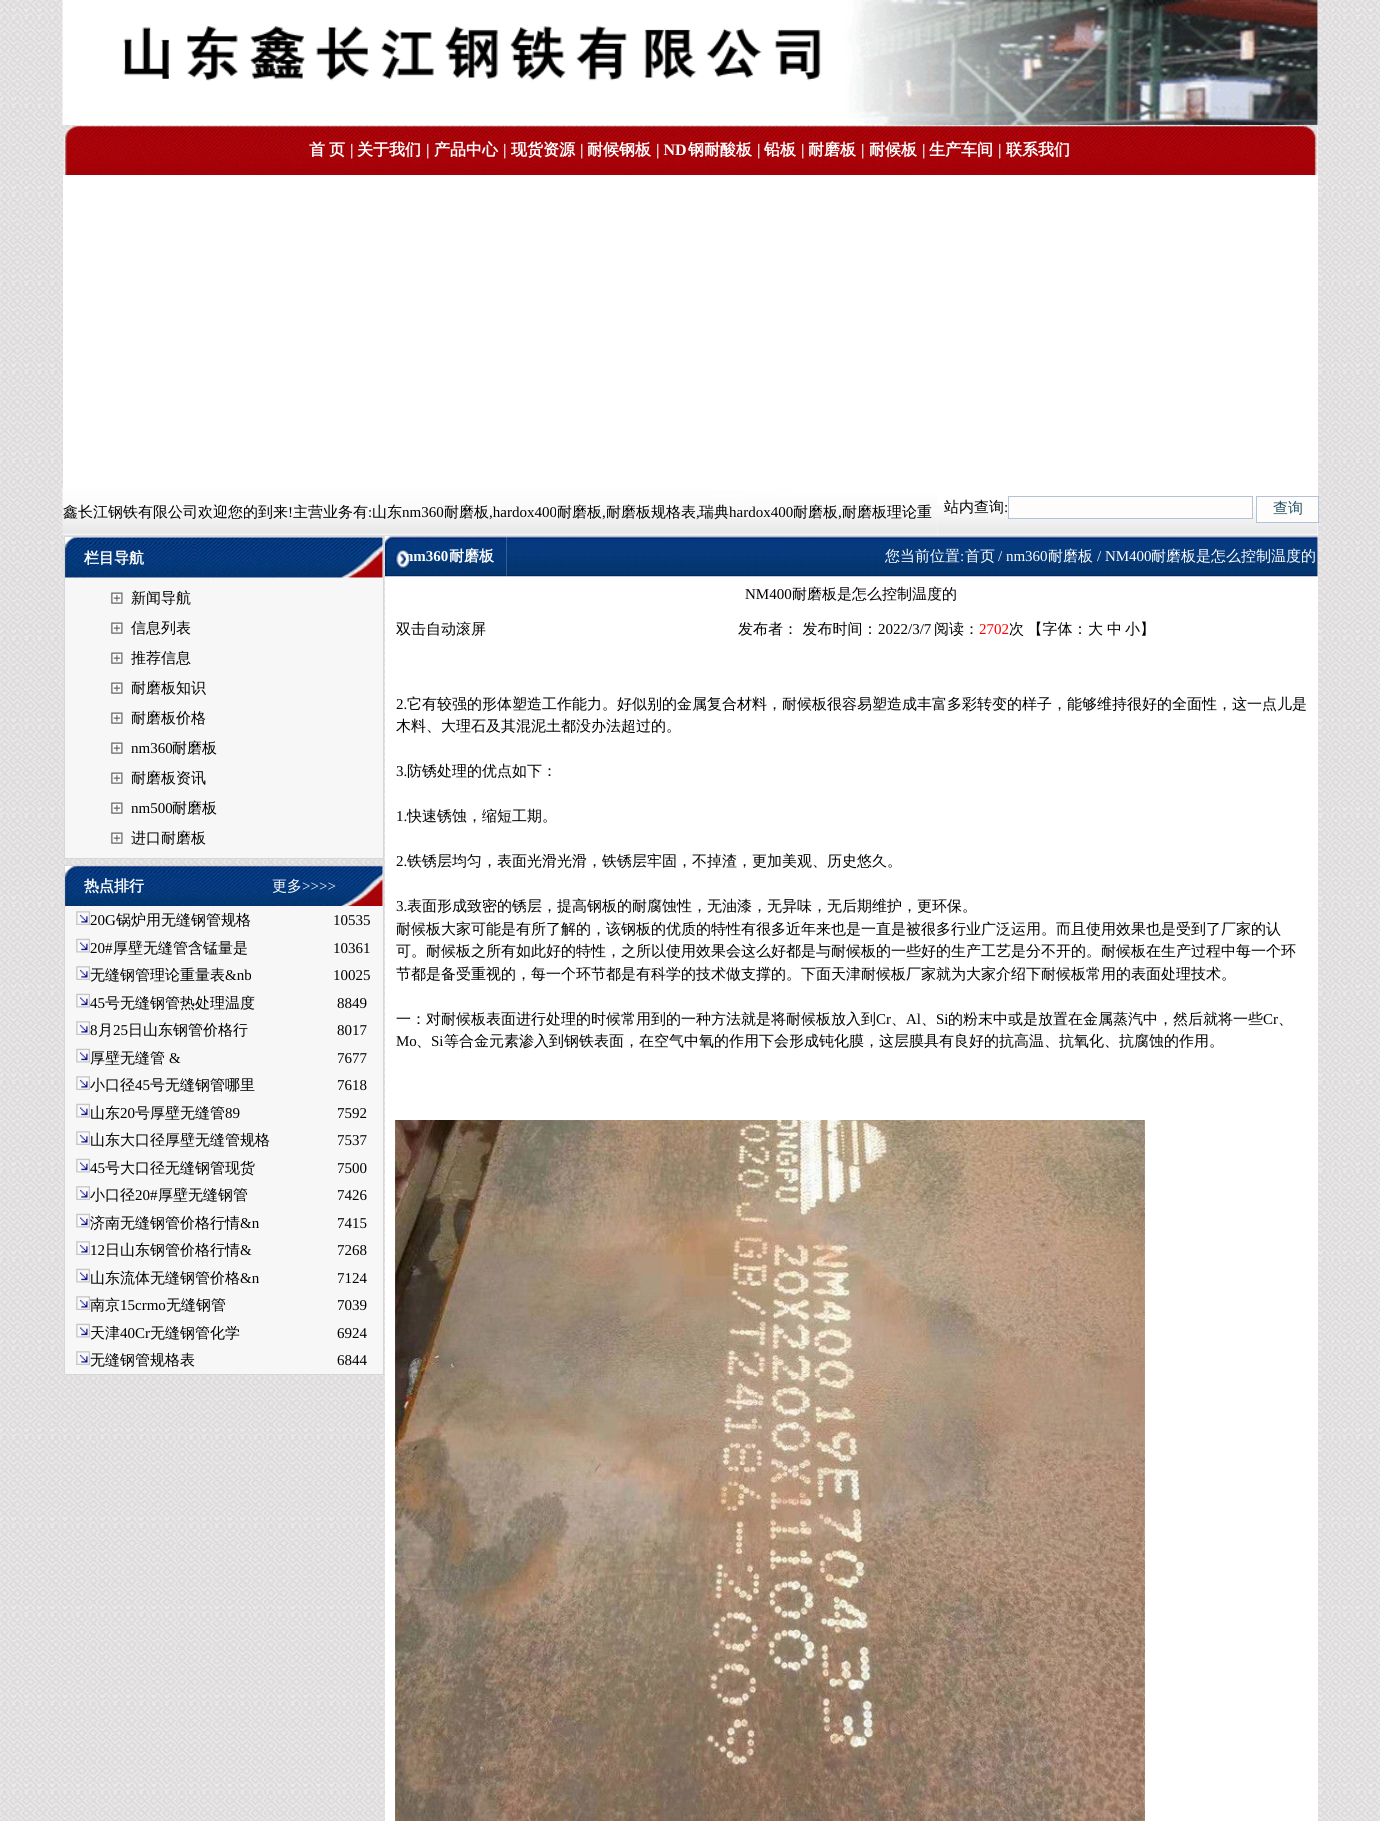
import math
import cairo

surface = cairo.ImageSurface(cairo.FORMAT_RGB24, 1380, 1821)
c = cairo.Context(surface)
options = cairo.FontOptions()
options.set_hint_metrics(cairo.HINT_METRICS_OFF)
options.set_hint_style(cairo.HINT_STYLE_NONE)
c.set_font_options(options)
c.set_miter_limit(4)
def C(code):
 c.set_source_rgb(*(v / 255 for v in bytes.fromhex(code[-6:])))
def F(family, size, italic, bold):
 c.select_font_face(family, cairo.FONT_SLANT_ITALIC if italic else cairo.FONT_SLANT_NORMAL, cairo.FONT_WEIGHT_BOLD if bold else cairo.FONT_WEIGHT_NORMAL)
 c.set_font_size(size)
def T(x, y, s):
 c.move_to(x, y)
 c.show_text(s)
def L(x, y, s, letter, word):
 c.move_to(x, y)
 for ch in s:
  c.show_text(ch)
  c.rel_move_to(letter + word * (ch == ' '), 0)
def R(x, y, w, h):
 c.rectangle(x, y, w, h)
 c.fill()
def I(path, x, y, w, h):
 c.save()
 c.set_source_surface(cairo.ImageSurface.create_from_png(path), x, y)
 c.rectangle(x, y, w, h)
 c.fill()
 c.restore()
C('ffffff')
c.paint()
I('1.png',0,0,1380,1821)
C('ffffff')
R(63,0,1255,536)
I('2.png',62,0,1256,125)
I('3.png',62,125,1256,50)
F('WenQuanYi Zen Hei',16,0,1)
T(309,155,'首')
T(329,155,'页')
F('Liberation Serif',16,0,1)
T(350,155,'|')
F('WenQuanYi Zen Hei',16,0,1)
T(357,155,'关于我们')
F('Liberation Serif',16,0,1)
T(426,155,'|')
F('WenQuanYi Zen Hei',16,0,1)
T(434,155,'产品中心')
F('Liberation Serif',16,0,1)
T(503,155,'|')
F('WenQuanYi Zen Hei',16,0,1)
T(511,155,'现货资源')
F('Liberation Serif',16,0,1)
T(580,155,'|')
F('WenQuanYi Zen Hei',16,0,1)
T(587,155,'耐候钢板')
F('Liberation Serif',16,0,1)
T(656,155,'| ND')
F('WenQuanYi Zen Hei',16,0,1)
T(688,155,'钢耐酸板')
F('Liberation Serif',16,0,1)
T(757,155,'|')
F('WenQuanYi Zen Hei',16,0,1)
T(764,155,'铅板')
F('Liberation Serif',16,0,1)
T(801,155,'|')
F('WenQuanYi Zen Hei',16,0,1)
T(808,155,'耐磨板')
F('Liberation Serif',16,0,1)
T(861,155,'|')
F('WenQuanYi Zen Hei',16,0,1)
T(869,155,'耐候板')
F('Liberation Serif',16,0,1)
T(922,155,'|')
F('WenQuanYi Zen Hei',16,0,1)
T(929,155,'生产车间')
F('Liberation Serif',16,0,1)
T(998,155,'|')
F('WenQuanYi Zen Hei',16,0,1)
T(1006,155,'联系我们')
I('4.png',62,487,876,49)
F('WenQuanYi Zen Hei Medium',15,0,0)
C('000000')
T(63,517,'鑫长江钢铁有限公司欢迎您的到来')
F('Liberation Serif',15,0,0)
T(288,517,'!')
F('WenQuanYi Zen Hei Medium',15,0,0)
T(293,517,'主营业务有')
F('Liberation Serif',15,0,0)
T(368,517,':')
F('WenQuanYi Zen Hei Medium',15,0,0)
T(372,517,'山东')
F('Liberation Serif',15,0,0)
T(402,517,'nm360')
F('WenQuanYi Zen Hei Medium',15,0,0)
T(444,517,'耐磨板')
F('Liberation Serif',15,0,0)
T(489,517,',hardox400')
F('WenQuanYi Zen Hei Medium',15,0,0)
T(557,517,'耐磨板')
F('Liberation Serif',15,0,0)
T(602,517,',')
F('WenQuanYi Zen Hei Medium',15,0,0)
T(606,517,'耐磨板规格表')
F('Liberation Serif',15,0,0)
T(696,517,',')
F('WenQuanYi Zen Hei Medium',15,0,0)
T(699,517,'瑞典')
F('Liberation Serif',15,0,0)
T(729,517,'hardox400')
F('WenQuanYi Zen Hei Medium',15,0,0)
T(793,517,'耐磨板')
F('Liberation Serif',15,0,0)
T(838,517,',')
F('WenQuanYi Zen Hei Medium',15,0,0)
T(842,517,'耐磨板理论重')
I('5.png',937,506,381,30)
T(944,512,'站内查询')
F('Liberation Serif',15,0,0)
T(1004,512,':')
C('fffdfb')
c.rectangle(1008.5,496.5,244,22)
c.fill_preserve()
C('b2c2d7')
c.set_line_width(1)
c.stroke()
C('fffdfb')
c.rectangle(1256.5,496.5,62,26)
c.fill_preserve()
C('b2c2d7')
c.stroke()
F('WenQuanYi Zen Hei Medium',15,0,0)
C('205064')
T(1273,513,'查询')
C('ffffff')
R(65,537,318,41)
c.rectangle(64.5,536.5,319,322)
C('d7d7d7')
c.stroke()
I('6.png',65,537,318,41)
F('WenQuanYi Zen Hei',15,0,1)
C('ffffff')
T(84,563,'栏目导航')
C('f7f7f7')
R(65,578,318,280)
I('7.png',111,592,12,12)
F('WenQuanYi Zen Hei Medium',15,0,0)
C('000000')
T(131,603,'新闻导航')
I('7.png',111,622,12,12)
T(131,633,'信息列表')
I('7.png',111,652,12,12)
T(131,663,'推荐信息')
I('7.png',111,682,12,12)
T(131,693,'耐磨板知识')
I('7.png',111,712,12,12)
T(131,723,'耐磨板价格')
I('7.png',111,742,12,12)
F('Liberation Serif',15,0,0)
T(131,753,'nm360')
F('WenQuanYi Zen Hei Medium',15,0,0)
T(172,753,'耐磨板')
I('8.png',111,772,12,12)
T(131,783,'耐磨板资讯')
I('7.png',111,802,12,12)
F('Liberation Serif',15,0,0)
T(131,813,'nm500')
F('WenQuanYi Zen Hei Medium',15,0,0)
T(172,813,'耐磨板')
I('7.png',111,832,12,12)
T(131,843,'进口耐磨板')
C('ffffff')
R(65,866,318,40)
c.rectangle(64.5,865.5,319,509)
C('d7d7d7')
c.stroke()
I('9.png',65,866,318,40)
F('WenQuanYi Zen Hei',15,0,1)
C('ffffff')
T(84,891,'热点排行')
F('WenQuanYi Zen Hei Medium',15,0,0)
T(272,891,'更多')
F('Liberation Serif',15,0,0)
T(302,891,'>>>>')
C('f7f7f7')
R(65,906,318,468)
I('10.png',76,911,14,14)
C('000000')
T(90,925,'20G')
F('WenQuanYi Zen Hei Medium',15,0,0)
T(116,925,'锅炉用无缝钢管规格')
F('Liberation Serif',15,0,0)
T(333,925,'10535')
I('11.png',76,938,14,15)
T(90,953,'20#')
F('WenQuanYi Zen Hei Medium',15,0,0)
T(113,953,'厚壁无缝管含锰量是')
F('Liberation Serif',15,0,0)
T(333,953,'10361')
I('10.png',76,966,14,14)
F('WenQuanYi Zen Hei Medium',15,0,0)
T(90,980,'无缝钢管理论重量表')
F('Liberation Serif',15,0,0)
T(225,980,'&nb')
T(333,980,'10025')
I('11.png',76,993,14,15)
T(90,1008,'45')
F('WenQuanYi Zen Hei Medium',15,0,0)
T(105,1008,'号无缝钢管热处理温度')
F('Liberation Serif',15,0,0)
T(337,1008,'8849')
I('12.png',76,1021,14,14)
T(90,1035,'8')
F('WenQuanYi Zen Hei Medium',15,0,0)
T(98,1035,'月')
F('Liberation Serif',15,0,0)
T(113,1035,'25')
F('WenQuanYi Zen Hei Medium',15,0,0)
T(128,1035,'日山东钢管价格行')
F('Liberation Serif',15,0,0)
T(337,1035,'8017')
I('11.png',76,1048,14,15)
F('WenQuanYi Zen Hei Medium',15,0,0)
T(90,1063,'厚壁无缝管')
F('Liberation Serif',15,0,0)
T(169,1063,'&')
T(337,1063,'7677')
I('10.png',76,1076,14,14)
F('WenQuanYi Zen Hei Medium',15,0,0)
T(90,1090,'小口径')
F('Liberation Serif',15,0,0)
T(135,1090,'45')
F('WenQuanYi Zen Hei Medium',15,0,0)
T(150,1090,'号无缝钢管哪里')
F('Liberation Serif',15,0,0)
T(337,1090,'7618')
I('11.png',76,1103,14,15)
F('WenQuanYi Zen Hei Medium',15,0,0)
T(90,1118,'山东')
F('Liberation Serif',15,0,0)
T(120,1118,'20')
F('WenQuanYi Zen Hei Medium',15,0,0)
T(135,1118,'号厚壁无缝管')
F('Liberation Serif',15,0,0)
T(225,1118,'89')
T(337,1118,'7592')
I('10.png',76,1131,14,14)
F('WenQuanYi Zen Hei Medium',15,0,0)
T(90,1145,'山东大口径厚壁无缝管规格')
F('Liberation Serif',15,0,0)
T(337,1145,'7537')
I('11.png',76,1158,14,15)
T(90,1173,'45')
F('WenQuanYi Zen Hei Medium',15,0,0)
T(105,1173,'号大口径无缝钢管现货')
F('Liberation Serif',15,0,0)
T(337,1173,'7500')
I('10.png',76,1186,14,14)
F('WenQuanYi Zen Hei Medium',15,0,0)
T(90,1200,'小口径')
F('Liberation Serif',15,0,0)
T(135,1200,'20#')
F('WenQuanYi Zen Hei Medium',15,0,0)
T(158,1200,'厚壁无缝钢管')
F('Liberation Serif',15,0,0)
T(337,1200,'7426')
I('11.png',76,1213,14,15)
F('WenQuanYi Zen Hei Medium',15,0,0)
T(90,1228,'济南无缝钢管价格行情')
F('Liberation Serif',15,0,0)
T(240,1228,'&n')
T(337,1228,'7415')
I('10.png',76,1241,14,14)
T(90,1255,'12')
F('WenQuanYi Zen Hei Medium',15,0,0)
T(105,1255,'日山东钢管价格行情')
F('Liberation Serif',15,0,0)
T(240,1255,'&')
T(337,1255,'7268')
I('11.png',76,1268,14,15)
F('WenQuanYi Zen Hei Medium',15,0,0)
T(90,1283,'山东流体无缝钢管价格')
F('Liberation Serif',15,0,0)
T(240,1283,'&n')
T(337,1283,'7124')
I('10.png',76,1296,14,14)
F('WenQuanYi Zen Hei Medium',15,0,0)
T(90,1310,'南京')
F('Liberation Serif',15,0,0)
T(120,1310,'15crmo')
F('WenQuanYi Zen Hei Medium',15,0,0)
T(166,1310,'无缝钢管')
F('Liberation Serif',15,0,0)
T(337,1310,'7039')
I('11.png',76,1323,14,15)
F('WenQuanYi Zen Hei Medium',15,0,0)
T(90,1338,'天津')
F('Liberation Serif',15,0,0)
T(120,1338,'40Cr')
F('WenQuanYi Zen Hei Medium',15,0,0)
T(150,1338,'无缝钢管化学')
F('Liberation Serif',15,0,0)
T(337,1338,'6924')
I('10.png',76,1351,14,14)
F('WenQuanYi Zen Hei Medium',15,0,0)
T(90,1365,'无缝钢管规格表')
F('Liberation Serif',15,0,0)
T(337,1365,'6844')
C('ffffff')
R(385,536,933,1285)
I('13.png',385,536,122,41)
F('Liberation Serif',15,0,1)
T(405,561,'nm360')
F('WenQuanYi Zen Hei',15,0,1)
T(449,561,'耐磨板')
I('14.png',506,536,812,41)
F('WenQuanYi Zen Hei Medium',15,0,0)
T(885,561,'您当前位置')
F('Liberation Serif',15,0,0)
T(960,561,':')
F('WenQuanYi Zen Hei Medium',15,0,0)
T(965,561,'首页')
F('Liberation Serif',15,0,0)
T(998,561,'/ nm360')
F('WenQuanYi Zen Hei Medium',15,0,0)
T(1048,561,'耐磨板')
F('Liberation Serif',15,0,0)
T(1097,561,'/ NM400')
F('WenQuanYi Zen Hei Medium',15,0,0)
T(1151,561,'耐磨板是怎么控制温度的')
F('Liberation Serif',15,0,0)
C('000000')
T(745,599,'NM400')
F('WenQuanYi Zen Hei Medium',15,0,0)
T(792,599,'耐磨板是怎么控制温度的')
T(396,634,'双击自动滚屏')
T(738,634,'发布者： 发布时间：')
F('Liberation Serif',15,0,0)
T(878,634,'2022/3/7')
F('WenQuanYi Zen Hei Medium',15,0,0)
T(934,634,'阅读：')
F('Liberation Serif',15,0,0)
C('ff0000')
T(979,634,'2702')
F('WenQuanYi Zen Hei Medium',15,0,0)
C('000000')
L(1009,634,'次 【字体：',0,-1)
T(1088,634,'大')
T(1107,634,'中')
T(1125,634,'小】')
F('Liberation Serif',15,0,0)
T(396,709,'2.')
F('WenQuanYi Zen Hei Medium',15,0,0)
T(407,709,'它有较强的形体塑造工作能力。好似别的金属复合材料，耐候板很容易塑造成丰富多彩转变的样子，能够维持很好的全面性，这一点儿是')
T(396,731,'木料、大理石及其混泥土都没办法超过的。')
F('Liberation Serif',15,0,0)
T(396,776,'3.')
F('WenQuanYi Zen Hei Medium',15,0,0)
T(407,776,'防锈处理的优点如下：')
F('Liberation Serif',15,0,0)
T(396,821,'1.')
F('WenQuanYi Zen Hei Medium',15,0,0)
T(407,821,'快速锈蚀，缩短工期。')
F('Liberation Serif',15,0,0)
T(396,866,'2.')
F('WenQuanYi Zen Hei Medium',15,0,0)
T(407,866,'铁锈层均匀，表面光滑光滑，铁锈层牢固，不掉渣，更加美观、历史悠久。')
F('Liberation Serif',15,0,0)
T(396,911,'3.')
F('WenQuanYi Zen Hei Medium',15,0,0)
T(407,911,'表面形成致密的锈层，提高钢板的耐腐蚀性，无油漆，无异味，无后期维护，更环保。')
T(396,934,'耐候板大家可能是有所了解的，该钢板的优质的特性有很多近年来也是一直是被很多行业广泛运用。而且使用效果也是受到了厂家的认')
T(396,956,'可。耐候板之所有如此好的特性，之所以使用效果会这么好都是与耐候板的一些好的生产工艺是分不开的。耐候板在生产过程中每一个环')
T(396,979,'节都是备受重视的，每一个环节都是有科学的技术做支撑的。下面天津耐候板厂家就为大家介绍下耐候板常用的表面处理技术。')
T(396,1024,'一：对耐候板表面进行处理的时候常用到的一种方法就是将耐候板放入到')
F('Liberation Serif',15,0,0)
T(876,1024,'Cr')
F('WenQuanYi Zen Hei Medium',15,0,0)
T(891,1024,'、')
F('Liberation Serif',15,0,0)
T(906,1024,'Al')
F('WenQuanYi Zen Hei Medium',15,0,0)
T(921,1024,'、')
F('Liberation Serif',15,0,0)
T(936,1024,'Si')
F('WenQuanYi Zen Hei Medium',15,0,0)
T(948,1024,'的粉末中或是放置在金属蒸汽中，然后就将一些')
F('Liberation Serif',15,0,0)
T(1263,1024,'Cr')
F('WenQuanYi Zen Hei Medium',15,0,0)
T(1278,1024,'、')
F('Liberation Serif',15,0,0)
T(396,1046,'Mo')
F('WenQuanYi Zen Hei Medium',15,0,0)
T(416,1046,'、')
F('Liberation Serif',15,0,0)
T(431,1046,'Si')
F('WenQuanYi Zen Hei Medium',15,0,0)
T(444,1046,'等合金元素渗入到钢铁表面，在空气中氧的作用下会形成钝化膜，这层膜具有良好的抗高温、抗氧化、抗腐蚀的作用。')
I('15.png',395,1120,750,701)
surface.write_to_png('o.png')
